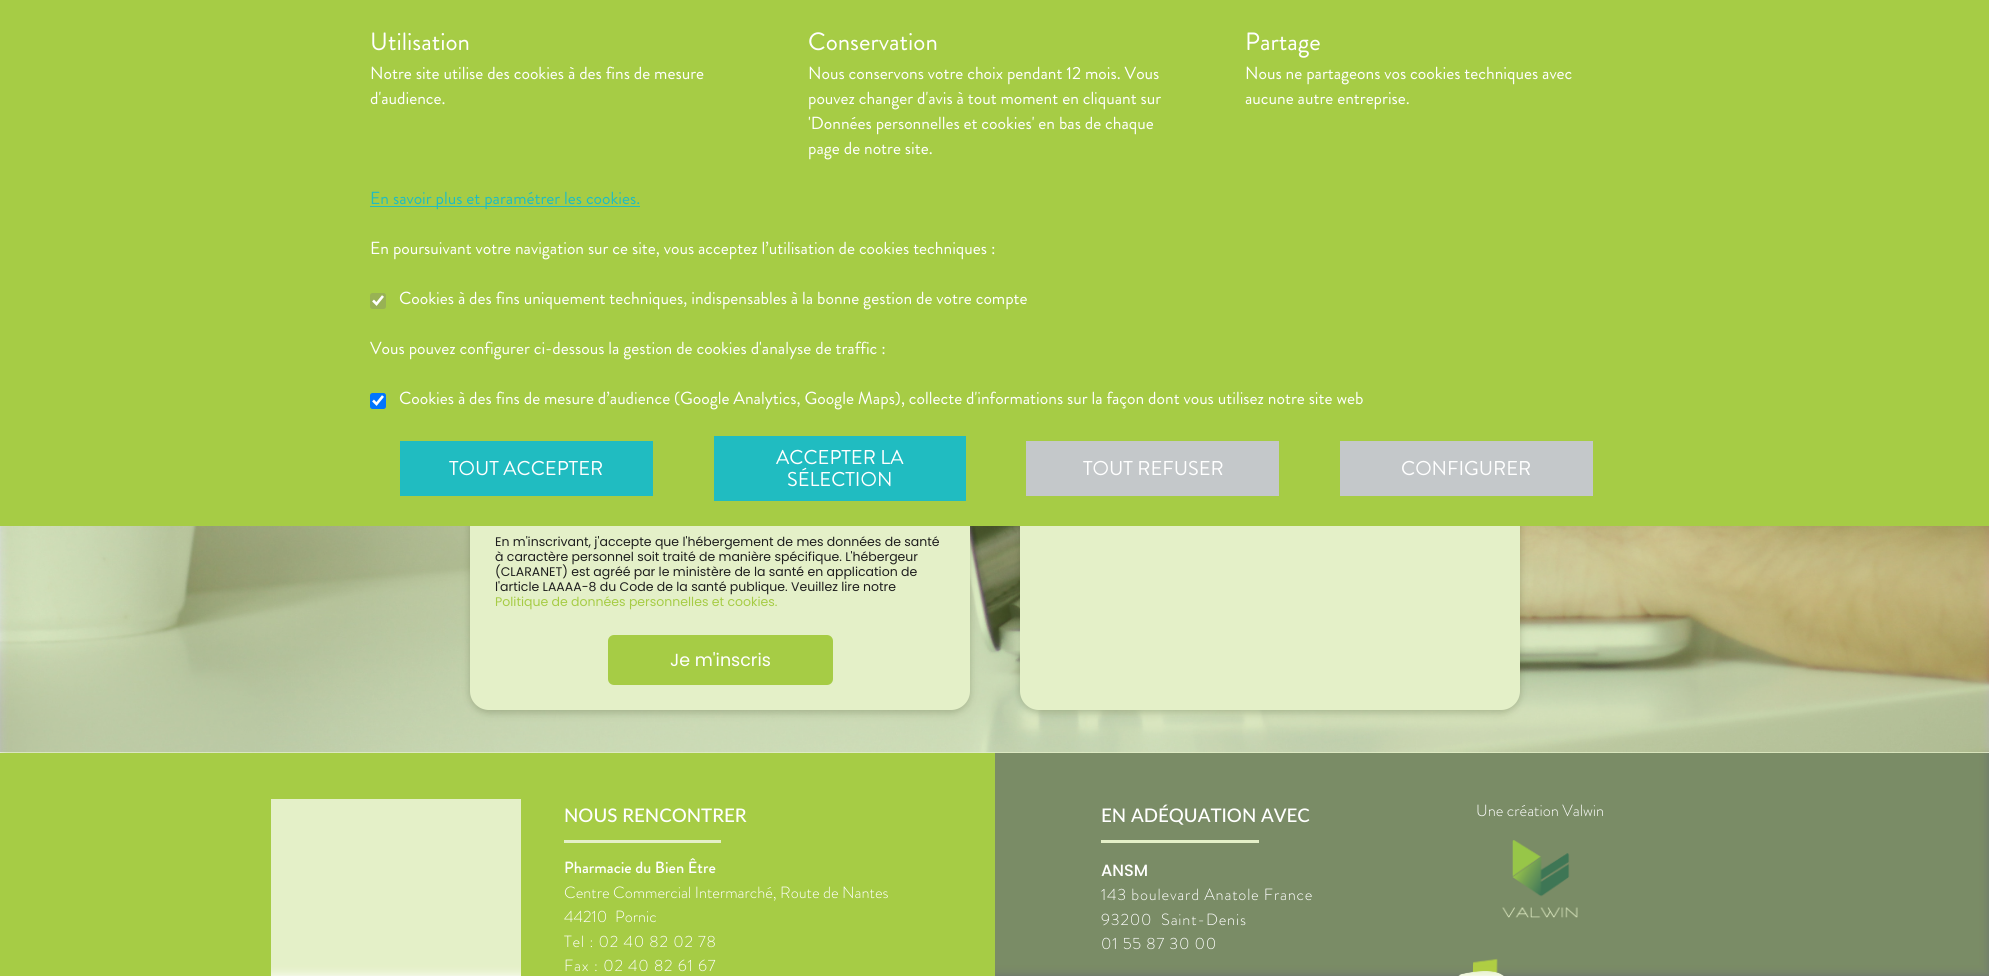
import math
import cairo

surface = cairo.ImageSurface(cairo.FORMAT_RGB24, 1989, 976)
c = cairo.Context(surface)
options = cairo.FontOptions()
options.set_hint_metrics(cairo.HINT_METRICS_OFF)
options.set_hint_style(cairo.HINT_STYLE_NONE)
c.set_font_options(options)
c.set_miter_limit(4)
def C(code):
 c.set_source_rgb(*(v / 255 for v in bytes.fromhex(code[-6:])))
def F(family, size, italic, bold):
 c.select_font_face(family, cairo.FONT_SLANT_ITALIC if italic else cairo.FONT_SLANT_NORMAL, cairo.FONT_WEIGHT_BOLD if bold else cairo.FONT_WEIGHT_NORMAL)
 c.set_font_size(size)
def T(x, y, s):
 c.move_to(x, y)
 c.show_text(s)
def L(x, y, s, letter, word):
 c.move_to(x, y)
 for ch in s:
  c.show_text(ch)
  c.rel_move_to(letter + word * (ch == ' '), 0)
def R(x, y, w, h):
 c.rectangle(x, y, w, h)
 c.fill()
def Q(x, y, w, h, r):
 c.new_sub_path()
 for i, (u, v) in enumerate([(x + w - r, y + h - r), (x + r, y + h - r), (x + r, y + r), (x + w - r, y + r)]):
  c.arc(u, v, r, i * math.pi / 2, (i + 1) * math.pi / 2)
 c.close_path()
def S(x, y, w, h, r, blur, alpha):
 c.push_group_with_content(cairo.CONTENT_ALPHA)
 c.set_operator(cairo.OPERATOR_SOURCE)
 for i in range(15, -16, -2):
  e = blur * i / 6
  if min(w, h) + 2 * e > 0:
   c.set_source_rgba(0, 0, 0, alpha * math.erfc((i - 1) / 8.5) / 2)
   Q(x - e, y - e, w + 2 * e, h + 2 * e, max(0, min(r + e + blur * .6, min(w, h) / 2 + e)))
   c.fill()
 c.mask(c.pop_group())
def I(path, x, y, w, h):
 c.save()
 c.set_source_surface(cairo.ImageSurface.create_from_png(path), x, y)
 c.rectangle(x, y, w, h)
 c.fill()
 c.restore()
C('ffffff')
c.paint()
I('1.png',0,526,1989,227)
C('000000')
S(470,25,500,688,19,4,.25)
C('ffffff')
Q(470,23,500,687,19)
c.fill()
C('a6cc45')
Q(609.5,636.5,222,47,4.5)
c.fill_preserve()
c.set_line_width(3)
c.stroke()
C('000000')
S(1020,25,500,688,19,4,.25)
C('ffffff')
Q(1020,23,500,687,19)
c.fill()
C('a6cc45')
R(0,753,995,223)
C('ffffff')
R(271,799,250,177)
R(564,840,157,3)
C('687073')
R(995,753,994,223)
C('ffffff')
R(1101,840,158,3)
I('2.png',1502,840,76,78)
I('3.png',1458,958,46,18)
C('a6cc45')
S(0,0,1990,976,0,5,.3)
C('a6cc45')
R(0,0,1989,526)
F('Brandon Grotesque',25,0,0)
C('ffffff')
T(370,50,'Utilisation')
F('Brandon Grotesque',17.5,0,0)
T(370,79,'Notre site utilise des cookies à des fins de mesure')
T(370,104,'d\'audience.')
F('Brandon Grotesque',25,0,0)
T(808,50,'Conservation')
F('Brandon Grotesque',17.5,0,0)
T(808,79,'Nous conservons votre choix pendant 12 mois. Vous')
T(808,104,'pouvez changer d\'avis à tout moment en cliquant sur')
T(808,129,'\'Données personnelles et cookies\' en bas de chaque')
T(808,154,'page de notre site.')
F('Brandon Grotesque',25,0,0)
T(1245,50,'Partage')
F('Brandon Grotesque',17.5,0,0)
T(1245,79,'Nous ne partageons vos cookies techniques avec')
T(1245,104,'aucune autre entreprise.')
C('20bcc1')
R(370,206,270,1)
T(370,204,'En savoir plus et paramétrer les cookies.')
C('ffffff')
T(370,254,'En poursuivant votre navigation sur ce site, vous acceptez l’utilisation de cookies techniques :')
C('98b254')
Q(370,293,16,16,2.5)
c.fill()
c.new_path()
c.move_to(373,300.5)
c.line_to(376.5,304)
c.line_to(383,296)
C('ffffff')
c.set_line_width(2.6)
c.stroke()
T(399,304,'Cookies à des fins uniquement techniques, indispensables à la bonne gestion de votre compte')
T(370,354,'Vous pouvez configurer ci-dessous la gestion de cookies d\'analyse de traffic :')
C('0075ff')
Q(370,393,16,16,2.5)
c.fill()
c.new_path()
c.move_to(373,400.5)
c.line_to(376.5,404)
c.line_to(383,396)
C('ffffff')
c.stroke()
T(399,404,'Cookies à des fins de mesure d’audience (Google Analytics, Google Maps), collecte d\'informations sur la façon dont vous utilisez notre site web')
C('20bcc1')
R(400,441,253,55)
F('Brandon Grotesque',20,0,0)
C('ffffff')
T(449,475,'TOUT ACCEPTER')
C('20bcc1')
R(714,436,252,65)
C('ffffff')
T(776,464,'ACCEPTER LA')
T(787,486,'SÉLECTION')
C('c4c8ca')
R(1026,441,253,55)
C('ffffff')
T(1083,475,'TOUT REFUSER')
C('c4c8ca')
R(1340,441,253,55)
C('ffffff')
T(1401,475,'CONFIGURER')
F('Poppins',12.5,0,0)
C('1e1e1e')
T(495,546,'En m\'inscrivant, j\'accepte que l\'hébergement de mes données de santé')
T(495,561,'à caractère personnel soit traité de manière spécifique. L\'hébergeur')
T(495,576,'(CLARANET) est agréé par le ministère de la santé en application de')
T(495,591,'l\'article LAAAA-8 du Code de la santé publique. Veuillez lire notre')
C('a6cc45')
T(495,606,'Politique de données personnelles et cookies.')
F('Poppins',17.5,0,0)
C('ffffff')
T(670,666,'Je m\'inscris')
F('Lato Medium',18.75,0,0)
T(564,822,'NOUS RENCONTRER')
F('Brandon Grotesque Medium',16.25,0,0)
T(564,873,'Pharmacie du Bien Être')
F('Brandon Grotesque Light',16.25,0,0)
T(564,898,'Centre Commercial Intermarché, Route de Nantes')
T(564,922,'44210')
T(615,922,'Pornic')
L(564,947,'Tel : 02 40 82 02 78',.8,0)
L(564,971,'Fax : 02 40 82 61 67',.8,0)
F('Lato Medium',18.75,0,0)
T(1101,822,'EN ADÉQUATION AVEC')
F('Poppins Medium',16.25,0,0)
T(1101,876,'ANSM')
F('Brandon Grotesque Light',16.25,0,0)
L(1101,900,'143 boulevard Anatole France',.8,0)
L(1101,925,'93200',.8,0)
L(1161,925,'Saint-Denis',.8,0)
L(1101,949,'01 55 87 30 00',.8,0)
T(1476,816,'Une création Valwin')
surface.write_to_png('o.png')
